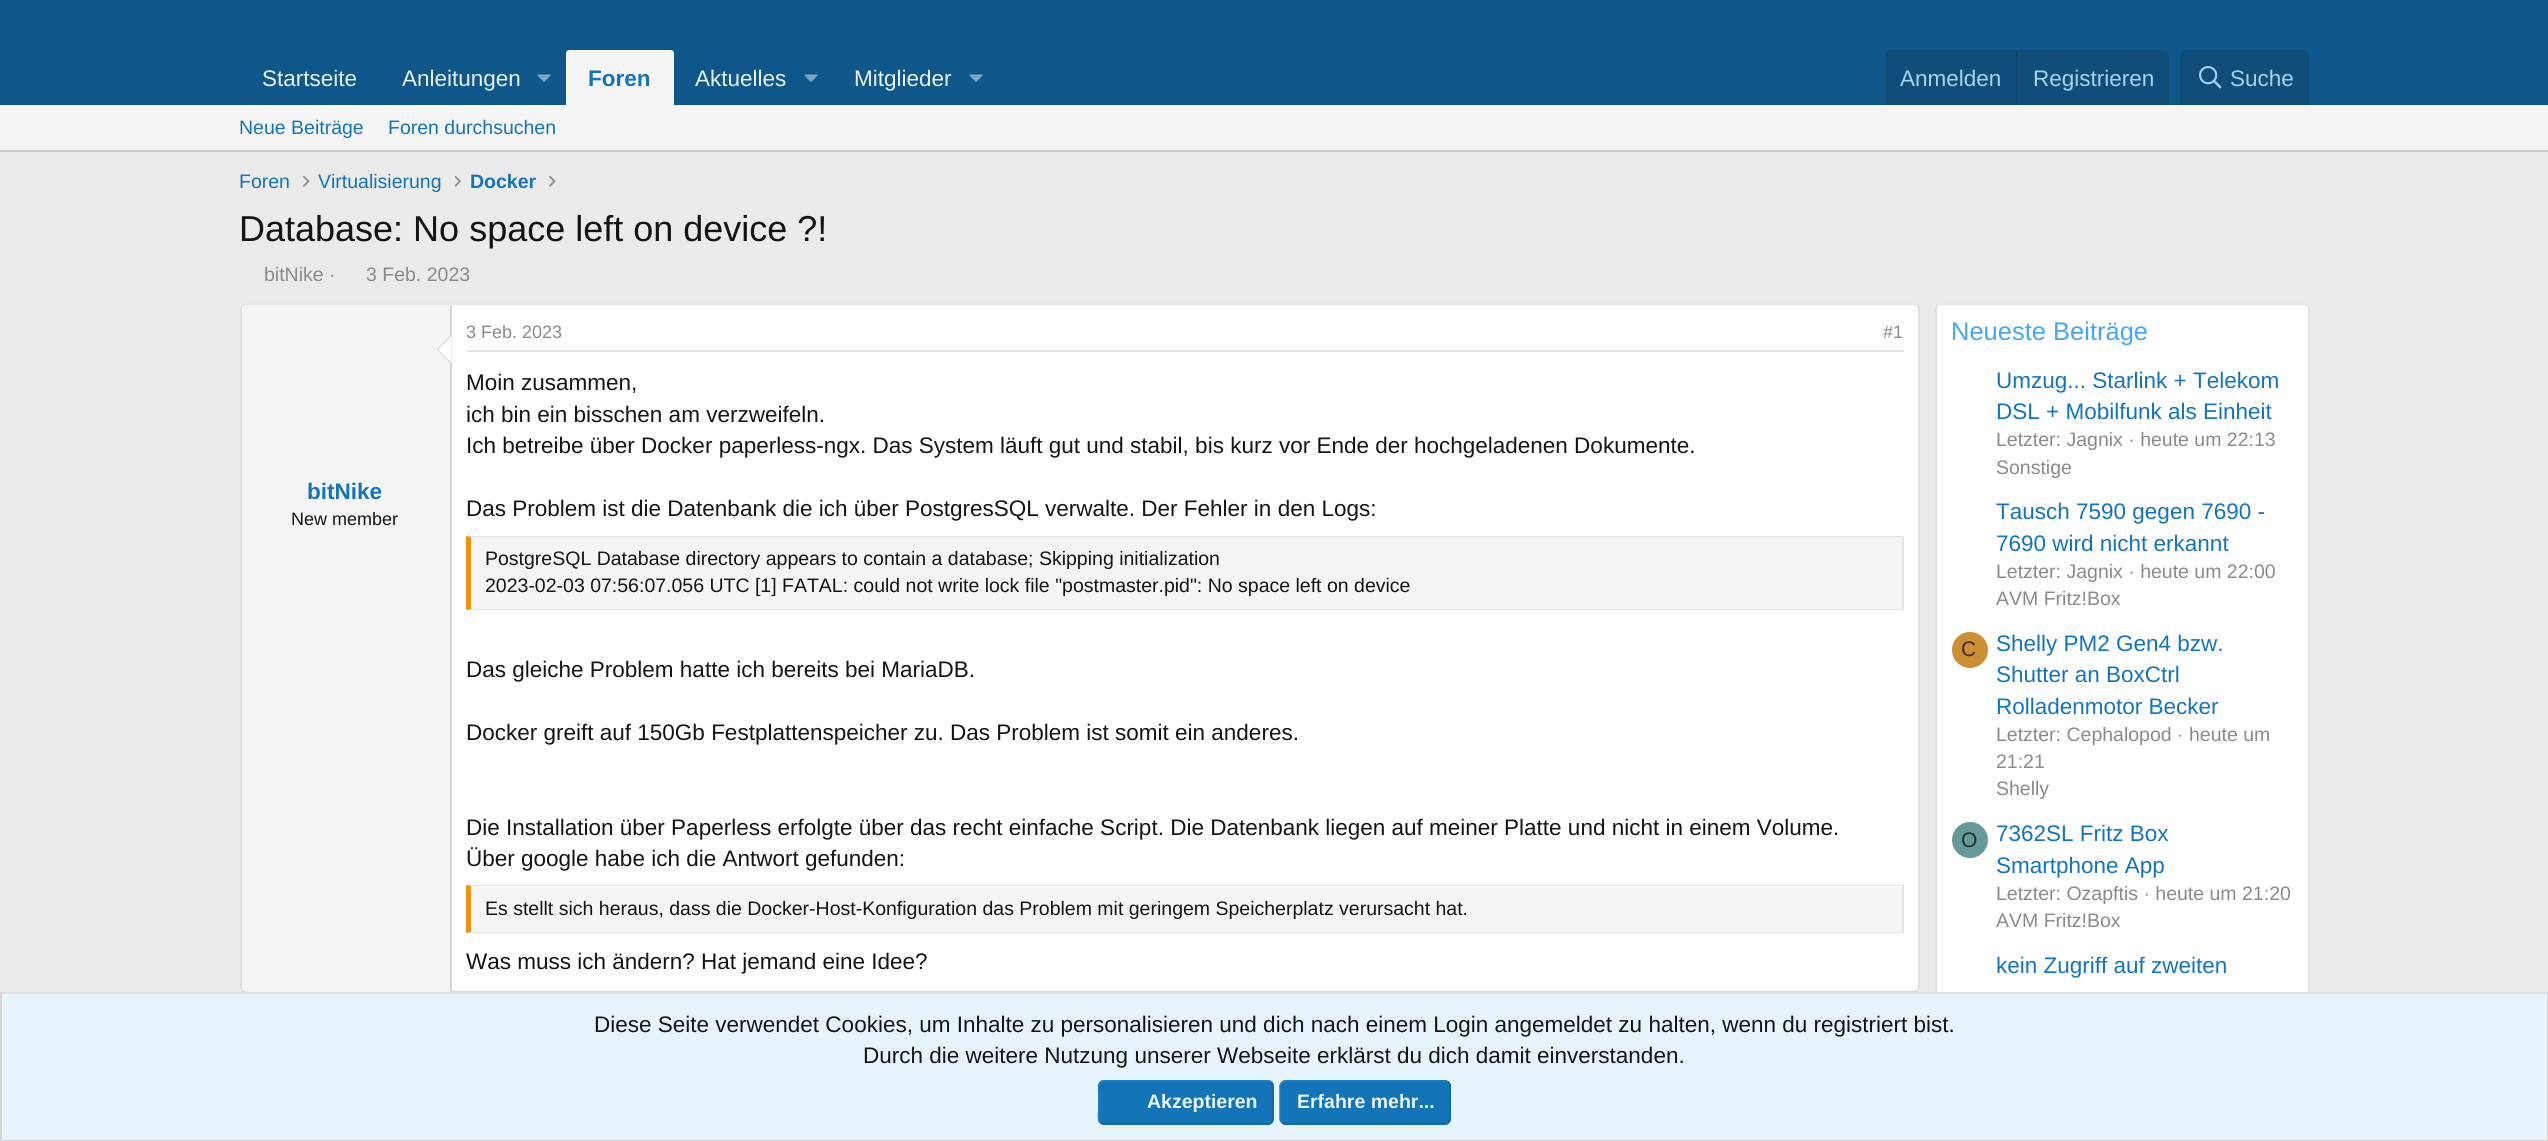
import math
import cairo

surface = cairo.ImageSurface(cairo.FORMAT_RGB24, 2548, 1141)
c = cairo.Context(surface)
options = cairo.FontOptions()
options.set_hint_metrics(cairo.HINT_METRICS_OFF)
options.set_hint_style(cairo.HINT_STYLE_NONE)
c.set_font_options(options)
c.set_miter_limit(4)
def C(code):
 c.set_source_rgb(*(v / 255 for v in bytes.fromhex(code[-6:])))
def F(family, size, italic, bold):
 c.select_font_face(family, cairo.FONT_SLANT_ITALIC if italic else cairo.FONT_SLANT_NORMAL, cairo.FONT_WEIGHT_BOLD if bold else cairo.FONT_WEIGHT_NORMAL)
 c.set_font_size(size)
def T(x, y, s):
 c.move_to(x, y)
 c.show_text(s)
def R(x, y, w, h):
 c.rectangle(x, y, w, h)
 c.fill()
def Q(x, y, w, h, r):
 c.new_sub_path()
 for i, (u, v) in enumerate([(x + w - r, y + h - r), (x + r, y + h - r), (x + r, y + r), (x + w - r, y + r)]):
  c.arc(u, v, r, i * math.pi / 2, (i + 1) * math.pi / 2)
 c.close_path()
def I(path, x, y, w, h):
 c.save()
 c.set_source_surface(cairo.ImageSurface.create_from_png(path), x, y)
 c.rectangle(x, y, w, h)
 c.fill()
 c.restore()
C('ebebeb')
c.paint()
C('0f578a')
R(0,0,2548,105)
F('Liberation Sans',22.5,0,0)
C('e8f4fc')
T(262,86,'Startseite')
T(402,86,'Anleitungen')
I('1.png',537,74,14,8)
C('f5f5f5')
c.new_path()
c.move_to(569,50)
c.line_to(671,50)
c.curve_to(672.5,50,674,51.5,674,53)
c.line_to(674,105)
c.line_to(566,105)
c.line_to(566,53)
c.curve_to(566,51.5,567.5,50,569,50)
c.close_path()
c.fill()
F('Liberation Sans',22.5,0,1)
C('1474b8')
T(588,86,'Foren')
F('Liberation Sans',22.5,0,0)
C('e8f4fc')
T(695,86,'Aktuelles')
I('1.png',804,74,14,8)
T(854,86,'Mitglieder')
I('1.png',969,74,14,8)
C('104d78')
c.new_path()
c.move_to(1892,50)
c.line_to(2163,50)
c.curve_to(2166.5,50,2169,52.5,2169,56)
c.line_to(2169,105)
c.line_to(1886,105)
c.line_to(1886,56)
c.curve_to(1886,52.5,1888.5,50,1892,50)
c.close_path()
c.fill()
C('a3d4f5')
T(1900,86,'Anmelden')
C('114469')
R(2016,50,2,55)
C('a3d4f5')
T(2033,86,'Registrieren')
C('104d78')
c.new_path()
c.move_to(2186,50)
c.line_to(2303,50)
c.curve_to(2306.5,50,2309,52.5,2309,56)
c.line_to(2309,105)
c.line_to(2180,105)
c.line_to(2180,56)
c.curve_to(2180,52.5,2182.5,50,2186,50)
c.close_path()
c.fill()
I('2.png',2199,66,23,23)
C('a3d4f5')
T(2230,86,'Suche')
C('f5f5f5')
R(0,105,2548,45)
C('cccccc')
R(0,150,2548,2)
F('Liberation Sans',19.5,0,0)
C('1474b8')
T(239,134,'Neue Beiträge')
T(388,134,'Foren durchsuchen')
T(239,188,'Foren')
I('3.png',303,175,7,12)
T(318,188,'Virtualisierung')
I('4.png',455,175,6,12)
F('Liberation Sans',19.5,0,1)
T(470,188,'Docker')
I('3.png',549,175,7,12)
F('Liberation Sans',36,0,0)
C('141414')
T(239,241,'Database: No space left on device ?!')
F('Liberation Sans',19.5,0,0)
C('8a8a8a')
T(264,281,'bitNike ·')
T(366,281,'3 Feb. 2023')
C('ffffff')
Q(240,303,1680,690,6)
c.fill()
c.new_path()
c.move_to(242.5,305.5)
c.curve_to(243.5,304.5,244.5,304,246,304)
c.line_to(1914,304)
c.curve_to(1915.5,304,1916.5,304.5,1917.5,305.5)
C('e0e0e0')
c.set_line_width(1.5)
c.stroke()
c.new_path()
c.move_to(1917.5,305.5)
c.curve_to(1918.5,306.5,1919,307.5,1919,309)
c.line_to(1919,987)
c.curve_to(1919,988.5,1918.5,989.5,1917.5,990.5)
C('d6d6d6')
c.stroke()
c.new_path()
c.move_to(1917.5,990.5)
c.curve_to(1916.5,991.5,1915.5,992,1914,992)
c.line_to(246,992)
c.curve_to(244.5,992,243.5,991.5,242.5,990.5)
C('cccccc')
c.stroke()
c.new_path()
c.move_to(242.5,990.5)
c.curve_to(241.5,989.5,241,988.5,241,987)
c.line_to(241,309)
c.curve_to(241,307.5,241.5,306.5,242.5,305.5)
C('d6d6d6')
c.stroke()
C('f5f5f5')
c.new_path()
c.move_to(247,305)
c.line_to(452,305)
c.line_to(452,992)
c.line_to(247,992)
c.curve_to(244,992,242,990,242,987)
c.line_to(242,310)
c.curve_to(242,307,244,305,247,305)
c.close_path()
c.fill()
C('d6d6d6')
R(450,305,2,687)
c.new_path()
c.move_to(451.5,334.5)
c.line_to(451.5,364.5)
c.line_to(436.5,349.5)
c.close_path()
c.fill()
C('ffffff')
c.new_path()
c.move_to(451.5,336)
c.line_to(451.5,363)
c.line_to(438,349.5)
c.close_path()
c.fill()
F('Liberation Sans',22.5,0,1)
C('1474b8')
T(307,499,'bitNike')
F('Liberation Sans',18,0,0)
C('141414')
T(291,525,'New member')
C('e5e5e5')
R(467,350,1437,2)
C('8a8a8a')
T(466,338,'3 Feb. 2023')
T(1883,338,'#1')
F('Liberation Sans',22.5,0,0)
C('141414')
T(466,390,'Moin zusammen,')
T(466,422,'ich bin ein bisschen am verzweifeln.')
T(466,453,'Ich betreibe über Docker paperless-ngx. Das System läuft gut und stabil, bis kurz vor Ende der hochgeladenen Dokumente.')
T(466,516,'Das Problem ist die Datenbank die ich über PostgresSQL verwalte. Der Fehler in den Logs:')
C('f5f5f5')
R(471,537,1431,72)
C('e5e5e5')
c.new_path()
c.move_to(466,536)
c.line_to(1904,536)
c.line_to(1902,537)
c.line_to(471,537)
c.close_path()
c.fill()
R(1902,536,2,75)
c.new_path()
c.move_to(1904,610)
c.line_to(466,610)
c.line_to(471,609)
c.line_to(1902,609)
c.close_path()
c.fill()
C('f2930d')
c.new_path()
c.move_to(466,610)
c.line_to(466,536)
c.line_to(471,537)
c.line_to(471,609)
c.close_path()
c.fill()
F('Liberation Sans',19.5,0,0)
C('141414')
T(485,565,'PostgreSQL Database directory appears to contain a database; Skipping initialization')
T(485,592,'2023-02-03 07:56:07.056 UTC [1] FATAL: could not write lock file "postmaster.pid": No space left on device')
F('Liberation Sans',22.5,0,0)
T(466,677,'Das gleiche Problem hatte ich bereits bei MariaDB.')
T(466,740,'Docker greift auf 150Gb Festplattenspeicher zu. Das Problem ist somit ein anderes.')
T(466,835,'Die Installation über Paperless erfolgte über das recht einfache Script. Die Datenbank liegen auf meiner Platte und nicht in einem Volume.')
T(466,866,'Über google habe ich die Antwort gefunden:')
C('f5f5f5')
R(471,887,1431,45)
C('e5e5e5')
c.new_path()
c.move_to(466,885)
c.line_to(1904,885)
c.line_to(1902,886)
c.line_to(471,886)
c.close_path()
c.fill()
R(1902,885,2,48)
c.new_path()
c.move_to(1904,933)
c.line_to(466,933)
c.line_to(471,932)
c.line_to(1902,932)
c.close_path()
c.fill()
C('f2930d')
c.new_path()
c.move_to(466,933)
c.line_to(466,885)
c.line_to(471,886)
c.line_to(471,932)
c.close_path()
c.fill()
F('Liberation Sans',19.5,0,0)
C('141414')
T(485,915,'Es stellt sich heraus, dass die Docker-Host-Konfiguration das Problem mit geringem Speicherplatz verursacht hat.')
F('Liberation Sans',22.5,0,0)
T(466,969,'Was muss ich ändern? Hat jemand eine Idee?')
C('ffffff')
Q(1935,303,375,833,6)
c.fill()
c.new_path()
c.move_to(1937.5,305.5)
c.curve_to(1938.5,304.5,1939.5,304,1941,304)
c.line_to(2304,304)
c.curve_to(2305.5,304,2306.5,304.5,2307.5,305.5)
C('e0e0e0')
c.stroke()
c.new_path()
c.move_to(2307.5,305.5)
c.curve_to(2308.5,306.5,2309,307.5,2309,309)
c.line_to(2309,1129.5)
c.curve_to(2309,1131,2308.5,1132,2307.5,1133)
C('d6d6d6')
c.stroke()
c.new_path()
c.move_to(1937.5,1133)
c.curve_to(1936.5,1132,1936,1131,1936,1129.5)
c.line_to(1936,309)
c.curve_to(1936,307.5,1936.5,306.5,1937.5,305.5)
c.stroke()
F('Liberation Sans',25.5,0,0)
C('47a7eb')
T(1951,340,'Neueste Beiträge')
F('Liberation Sans',22.5,0,0)
C('1474b8')
T(1996,388,'Umzug... Starlink + Telekom')
T(1996,419,'DSL + Mobilfunk als Einheit')
F('Liberation Sans',19.5,0,0)
C('8a8a8a')
T(1996,446,'Letzter: Jagnix · heute um 22:13')
T(1996,474,'Sonstige')
F('Liberation Sans',22.5,0,0)
C('1474b8')
T(1996,519,'Tausch 7590 gegen 7690 -')
T(1996,551,'7690 wird nicht erkannt')
F('Liberation Sans',19.5,0,0)
C('8a8a8a')
T(1996,578,'Letzter: Jagnix · heute um 22:00')
T(1996,605,'AVM Fritz!Box')
C('cc8f33')
c.new_path()
c.arc(1970,650,18,0,2 * math.pi)
c.fill()
F('Liberation Sans',21,0,0)
C('3d2b0f')
T(1961,656,'C')
F('Liberation Sans',22.5,0,0)
C('1474b8')
T(1996,651,'Shelly PM2 Gen4 bzw.')
T(1996,682,'Shutter an BoxCtrl')
T(1996,714,'Rolladenmotor Becker')
F('Liberation Sans',19.5,0,0)
C('8a8a8a')
T(1996,741,'Letzter: Cephalopod · heute um')
T(1996,768,'21:21')
T(1996,795,'Shelly')
C('669999')
c.new_path()
c.arc(1970,840,18,0,2 * math.pi)
c.fill()
F('Liberation Sans',21,0,0)
C('1f2e2e')
T(1961,847,'O')
F('Liberation Sans',22.5,0,0)
C('1474b8')
T(1996,841,'7362SL Fritz Box')
T(1996,873,'Smartphone App')
F('Liberation Sans',19.5,0,0)
C('8a8a8a')
T(1996,900,'Letzter: Ozapftis · heute um 21:20')
T(1996,927,'AVM Fritz!Box')
F('Liberation Sans',22.5,0,0)
C('1474b8')
T(1996,973,'kein Zugriff auf zweiten')
C('e8f4fc')
R(2,994,2545,146)
C('e0e0e0')
R(0,992,2548,2)
C('d6d6d6')
R(2547,992,1,149)
C('cccccc')
R(0,1140,2548,1)
C('d6d6d6')
R(0,992,2,149)
C('141414')
T(594,1032,'Diese Seite verwendet Cookies, um Inhalte zu personalisieren und dich nach einem Login angemeldet zu halten, wenn du registriert bist.')
T(863,1063,'Durch die weitere Nutzung unserer Webseite erklärst du dich damit einverstanden.')
C('1474b8')
Q(1098,1080,176,45,6)
c.fill()
c.new_path()
c.move_to(1271,1082.5)
c.curve_to(1274.5,1085.5,1273,1093.5,1273,1097)
c.line_to(1273,1108)
c.curve_to(1273,1112,1275,1124,1267.5,1124)
c.line_to(1104,1124)
c.curve_to(1102.5,1124,1101.5,1123.5,1100.5,1122.5)
C('1265a1')
c.stroke()
c.new_path()
c.move_to(1100.5,1122.5)
c.curve_to(1097,1119.5,1099,1111.5,1099,1108)
c.line_to(1099,1097)
c.curve_to(1099,1093,1096.5,1081,1104,1081)
c.line_to(1267.5,1081)
c.curve_to(1269,1081,1270,1081.5,1271,1082.5)
C('1782cf')
c.stroke()
F('Liberation Sans',19.5,0,1)
C('e8f4fc')
T(1147,1108,'Akzeptieren')
C('1474b8')
Q(1280,1080,171,45,6)
c.fill()
c.new_path()
c.move_to(1448,1082.5)
c.curve_to(1449,1083.5,1450,1084.5,1450,1086)
c.line_to(1450,1119)
c.curve_to(1450,1120.5,1449,1121.5,1448,1122.5)
c.curve_to(1447,1123.5,1446,1124,1444.5,1124)
c.line_to(1285.5,1124)
c.curve_to(1284,1124,1283,1123.5,1282,1122.5)
C('1265a1')
c.stroke()
c.new_path()
c.move_to(1282,1122.5)
c.curve_to(1281,1121.5,1280,1120.5,1280,1119)
c.line_to(1280,1086)
c.curve_to(1280,1084.5,1281,1083.5,1282,1082.5)
c.curve_to(1283,1081.5,1284,1081,1285.5,1081)
c.line_to(1444.5,1081)
c.curve_to(1446,1081,1447,1081.5,1448,1082.5)
C('1782cf')
c.stroke()
C('e8f4fc')
T(1297,1108,'Erfahre mehr...')
surface.write_to_png('o.png')
